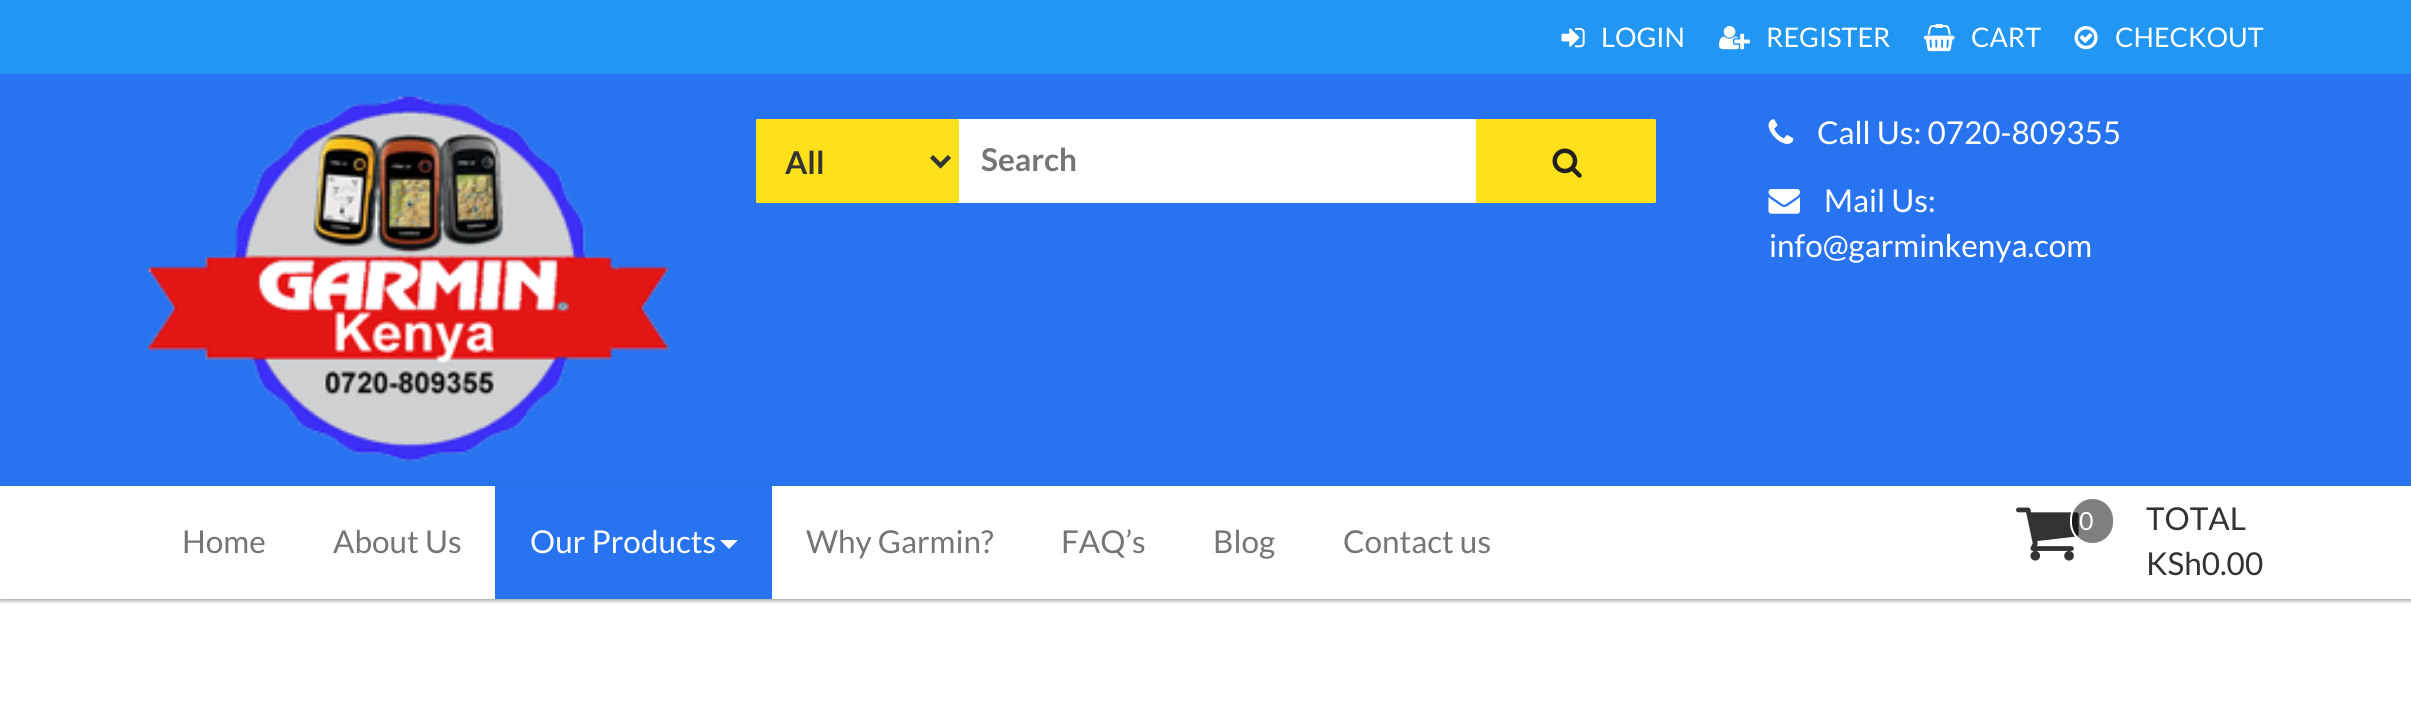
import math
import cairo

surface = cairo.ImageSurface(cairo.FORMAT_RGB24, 2411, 725)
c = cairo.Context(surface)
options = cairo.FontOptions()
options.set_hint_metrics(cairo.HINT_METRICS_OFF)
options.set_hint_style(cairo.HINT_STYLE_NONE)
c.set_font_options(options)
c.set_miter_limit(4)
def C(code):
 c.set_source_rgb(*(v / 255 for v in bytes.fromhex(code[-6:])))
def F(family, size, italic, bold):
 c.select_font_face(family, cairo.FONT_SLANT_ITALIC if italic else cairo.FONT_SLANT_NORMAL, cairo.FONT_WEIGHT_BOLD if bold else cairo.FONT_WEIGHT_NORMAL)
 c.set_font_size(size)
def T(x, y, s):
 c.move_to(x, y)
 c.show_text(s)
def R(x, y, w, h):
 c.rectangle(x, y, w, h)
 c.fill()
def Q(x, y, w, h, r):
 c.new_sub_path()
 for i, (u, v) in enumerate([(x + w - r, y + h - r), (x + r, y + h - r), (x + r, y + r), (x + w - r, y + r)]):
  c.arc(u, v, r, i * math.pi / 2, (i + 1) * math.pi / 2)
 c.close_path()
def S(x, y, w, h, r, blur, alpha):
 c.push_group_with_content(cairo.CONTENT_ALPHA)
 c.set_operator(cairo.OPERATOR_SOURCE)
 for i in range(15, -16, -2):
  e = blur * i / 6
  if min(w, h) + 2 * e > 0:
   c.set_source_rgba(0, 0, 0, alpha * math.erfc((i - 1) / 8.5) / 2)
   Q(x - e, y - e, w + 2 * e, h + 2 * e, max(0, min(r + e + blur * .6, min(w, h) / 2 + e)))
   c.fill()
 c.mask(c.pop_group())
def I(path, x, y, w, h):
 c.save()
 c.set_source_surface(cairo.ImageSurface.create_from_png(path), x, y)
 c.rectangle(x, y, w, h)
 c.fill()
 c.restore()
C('ffffff')
c.paint()
C('2196f3')
R(0,0,2411,74)
I('1.png',1561,27,24,21)
F('Lato',27,0,0)
C('ffffff')
T(1601,47,'LOGIN')
I('2.png',1719,26,31,24)
T(1766,47,'REGISTER')
I('3.png',1923,24,32,28)
T(1971,47,'CART')
I('4.png',2074,26,24,24)
T(2115,47,'CHECKOUT')
C('2874f0')
R(0,74,2411,412)
I('5.png',148,96,523,366)
C('ffffff')
Q(756,119,900,84,2)
c.fill()
C('ffe11b')
Q(756,119,203,84,2)
c.fill()
c.new_path()
c.move_to(931.5,156.5)
c.line_to(940.5,165.5)
c.line_to(949.5,156.5)
C('333333')
c.set_line_width(4.5)
c.stroke()
F('Lato',31.5,0,1)
T(785,174,'All')
C('757575')
T(981,171,'Search')
C('ffe11b')
c.new_path()
c.move_to(1476,119)
c.line_to(1654,119)
c.curve_to(1655,119,1656,120,1656,121)
c.line_to(1656,201)
c.curve_to(1656,202,1655,203,1654,203)
c.line_to(1476,203)
c.close_path()
c.fill()
I('6.png',1552,148,30,30)
I('7.png',1768,119,26,25)
F('Lato',31.5,0,0)
C('ffffff')
T(1817,144,'Call Us: 0720-809355')
I('8.png',1768,189,32,25)
T(1824,212,'Mail Us:')
T(1769,257,'info@garminkenya.com')
C('000000')
S(0,488,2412,113,0,2,.35)
C('ffffff')
R(0,486,2411,113)
C('757575')
T(182,553,'Home')
T(333,553,'About Us')
C('2874f0')
R(495,486,277,113)
C('ffffff')
T(530,553,'Our Products')
c.new_path()
c.move_to(720,540)
c.line_to(738,540)
c.line_to(729,549)
c.close_path()
c.fill()
C('757575')
T(806,553,'Why Garmin?')
T(1061,553,'FAQ’s')
T(1213,553,'Blog')
T(1343,553,'Contact us')
I('9.png',2016,507,63,54)
c.set_source_rgba(0,0,0,0.5)
Q(2071,498,43,46,21.5)
c.fill_preserve()
C('ffffff')
c.set_line_width(2)
c.stroke()
F('Lato',25,0,0)
T(2079,530,'0')
F('Lato',31.5,0,0)
C('333333')
T(2146,530,'TOTAL')
T(2146,575,'KSh0.00')
surface.write_to_png('o.png')
